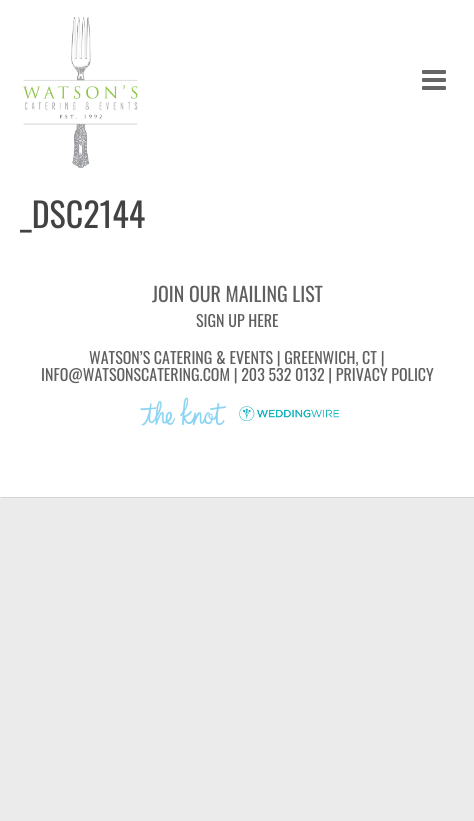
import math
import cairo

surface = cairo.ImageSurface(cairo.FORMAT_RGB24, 474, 821)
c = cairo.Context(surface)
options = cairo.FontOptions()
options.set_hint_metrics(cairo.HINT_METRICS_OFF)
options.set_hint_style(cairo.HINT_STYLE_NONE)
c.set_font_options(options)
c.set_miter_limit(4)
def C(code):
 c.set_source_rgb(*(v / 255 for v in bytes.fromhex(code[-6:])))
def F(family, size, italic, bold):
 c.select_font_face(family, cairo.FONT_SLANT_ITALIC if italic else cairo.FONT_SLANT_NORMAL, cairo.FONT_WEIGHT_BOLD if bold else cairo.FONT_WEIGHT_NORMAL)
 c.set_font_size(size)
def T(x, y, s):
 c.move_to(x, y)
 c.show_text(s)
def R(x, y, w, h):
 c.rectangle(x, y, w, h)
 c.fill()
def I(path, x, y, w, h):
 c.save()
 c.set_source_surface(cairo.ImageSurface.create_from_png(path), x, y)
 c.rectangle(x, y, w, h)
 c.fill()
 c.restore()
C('ebebeb')
c.paint()
C('d4d4d4')
c.new_path()
c.move_to(1,497)
c.line_to(1,498)
c.line_to(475,498)
c.line_to(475,1)
c.line_to(474,1)
c.line_to(474,497)
c.close_path()
c.fill()
C('ffffff')
R(0,0,474,497)
C('666666')
c.new_path()
c.move_to(423,70)
c.line_to(434,70)
c.line_to(434,74)
c.line_to(423,74)
c.curve_to(422.5,74,422,73.5,422,73)
c.line_to(422,71)
c.curve_to(422,70.5,422.5,70,423,70)
c.close_path()
c.fill()
c.new_path()
c.move_to(434,70)
c.line_to(445,70)
c.curve_to(445.5,70,446,70.5,446,71)
c.line_to(446,73)
c.curve_to(446,73.5,445.5,74,445,74)
c.line_to(434,74)
c.close_path()
c.fill()
c.new_path()
c.move_to(423,78)
c.line_to(434,78)
c.line_to(434,82)
c.line_to(423,82)
c.curve_to(422.5,82,422,81.5,422,81)
c.line_to(422,79)
c.curve_to(422,78.5,422.5,78,423,78)
c.close_path()
c.fill()
c.new_path()
c.move_to(434,78)
c.line_to(445,78)
c.curve_to(445.5,78,446,78.5,446,79)
c.line_to(446,81)
c.curve_to(446,81.5,445.5,82,445,82)
c.line_to(434,82)
c.close_path()
c.fill()
c.new_path()
c.move_to(423,86)
c.line_to(434,86)
c.line_to(434,90)
c.line_to(423,90)
c.curve_to(422.5,90,422,89.5,422,89)
c.line_to(422,87)
c.curve_to(422,86.5,422.5,86,423,86)
c.close_path()
c.fill()
c.new_path()
c.move_to(434,86)
c.line_to(445,86)
c.curve_to(445.5,86,446,86.5,446,87)
c.line_to(446,89)
c.curve_to(446,89.5,445.5,90,445,90)
c.line_to(434,90)
c.close_path()
c.fill()
I('1.png',22,17,116,151)
F('Oswald',34,0,0)
C('424242')
T(20,228,'_DSC2144')
F('Oswald',20,0,0)
C('5f5f5f')
T(152,302,'JOIN OUR MAILING LIST')
F('Oswald',16,0,0)
T(196,327,'SIGN UP HERE')
T(89,364,'WATSON’S CATERING & EVENTS | GREENWICH, CT |')
T(41,381,'INFO@WATSONSCATERING.COM | 203 532 0132 | PRIVACY POLICY')
I('2.png',140,397,86,29)
I('3.png',239,406,100,15)
surface.write_to_png('o.png')
